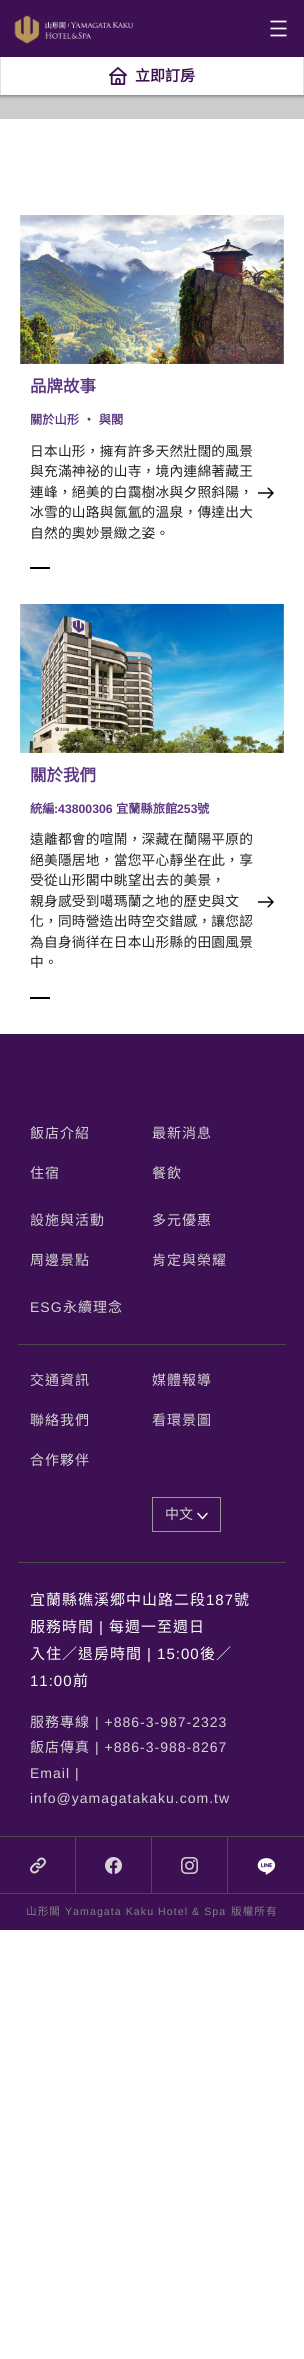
import math
import cairo

surface = cairo.ImageSurface(cairo.FORMAT_RGB24, 304, 2359)
c = cairo.Context(surface)
options = cairo.FontOptions()
options.set_hint_metrics(cairo.HINT_METRICS_OFF)
options.set_hint_style(cairo.HINT_STYLE_NONE)
c.set_font_options(options)
c.set_miter_limit(4)
def C(code):
 c.set_source_rgb(*(v / 255 for v in bytes.fromhex(code[-6:])))
def F(family, size, italic, bold):
 c.select_font_face(family, cairo.FONT_SLANT_ITALIC if italic else cairo.FONT_SLANT_NORMAL, cairo.FONT_WEIGHT_BOLD if bold else cairo.FONT_WEIGHT_NORMAL)
 c.set_font_size(size)
def T(x, y, s):
 c.move_to(x, y)
 c.show_text(s)
def L(x, y, s, letter, word):
 c.move_to(x, y)
 for ch in s:
  c.show_text(ch)
  c.rel_move_to(letter + word * (ch == ' '), 0)
def R(x, y, w, h):
 c.rectangle(x, y, w, h)
 c.fill()
def Q(x, y, w, h, r):
 c.new_sub_path()
 for i, (u, v) in enumerate([(x + w - r, y + h - r), (x + r, y + h - r), (x + r, y + r), (x + w - r, y + r)]):
  c.arc(u, v, r, i * math.pi / 2, (i + 1) * math.pi / 2)
 c.close_path()
def S(x, y, w, h, r, blur, alpha):
 c.push_group_with_content(cairo.CONTENT_ALPHA)
 c.set_operator(cairo.OPERATOR_SOURCE)
 for i in range(15, -16, -2):
  e = blur * i / 6
  if min(w, h) + 2 * e > 0:
   c.set_source_rgba(0, 0, 0, alpha * math.erfc((i - 1) / 8.5) / 2)
   Q(x - e, y - e, w + 2 * e, h + 2 * e, max(0, min(r + e + blur * .6, min(w, h) / 2 + e)))
   c.fill()
 c.mask(c.pop_group())
def I(path, x, y, w, h):
 c.save()
 c.set_source_surface(cairo.ImageSurface.create_from_png(path), x, y)
 c.rectangle(x, y, w, h)
 c.fill()
 c.restore()
C('ffffff')
c.paint()
C('cccccc')
R(0,95,304,24)
c.save()
c.rectangle(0,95,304,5)
c.clip()
C('4b4b4b')
S(0,0,304,95,0,2.5,1)
c.restore()
C('3c1053')
R(0,0,304,57)
I('1.png',14,15,119,29)
I('2.png',270,20,17,17)
C('e1e1e1')
R(303,57,1,38)
R(0,57,1,38)
I('3.png',109,67,18,18)
F('Noto Sans CJK TC',15,0,1)
C('3c1053')
T(135,81,'立即訂房')
I('4.png',20,215,264,149)
F('Noto Sans CJK TC',16.5,0,1)
C('5b3783')
T(30,392,'品牌故事')
F('Noto Sans CJK TC',12.25,0,1)
L(30,424,'關於山形 ‧ 與閣',0,1)
F('Noto Sans CJK TC',13.7,0,0)
C('212121')
L(30,456,'日本山形，擁有許多天然壯闊的風景',.25,0)
L(30,476,'與充滿神祕的山寺，境內連綿著藏王',.25,0)
L(30,497,'連峰，絕美的白靄樹冰與夕照斜陽，',.25,0)
L(30,517,'冰雪的山路與氤氳的溫泉，傳達出大',.25,0)
L(30,538,'自然的奧妙景緻之姿。',.25,0)
I('5.png',258,487,16,12)
C('000000')
R(30,567,20,2)
I('6.png',20,604,264,149)
F('Noto Sans CJK TC',16.5,0,1)
C('5b3783')
T(30,781,'關於我們')
F('Noto Sans CJK TC',12.25,0,1)
T(30,813,'統編')
F('Liberation Sans',12.25,0,1)
T(54,813,':43800306')
F('Noto Sans CJK TC',12.25,0,1)
T(116,813,'宜蘭縣旅館')
F('Liberation Sans',12.25,0,1)
T(177,813,'253')
F('Noto Sans CJK TC',12.25,0,1)
T(197,813,'號')
F('Noto Sans CJK TC',13.7,0,0)
C('212121')
L(30,844,'遠離都會的喧鬧，深藏在蘭陽平原的',.25,0)
L(30,865,'絕美隱居地，當您平心靜坐在此，享',.25,0)
L(30,885,'受從山形閣中眺望出去的美景，',.25,0)
L(30,906,'親身感受到噶瑪蘭之地的歷史與文',.25,0)
L(30,926,'化，同時營造出時空交錯感，讓您認',.25,0)
L(30,947,'為自身徜徉在日本山形縣的田園風景',.25,0)
L(30,967,'中。',.25,0)
I('5.png',258,896,16,12)
C('000000')
R(30,997,20,2)
C('3c1053')
R(0,1034,304,896)
F('Noto Sans CJK TC',14,0,0)
C('d4d4d4')
L(30,1138,'飯店介紹',1,0)
L(152,1138,'最新消息',1,0)
L(30,1178,'住宿',1,0)
L(152,1178,'餐飲',1,0)
L(30,1225,'設施與活動',1,0)
L(152,1225,'多元優惠',1,0)
L(30,1265,'周邊景點',1,0)
L(152,1265,'肯定與榮耀',1,0)
F('Liberation Sans',14,0,0)
L(30,1312,'ESG',1,0)
F('Noto Sans CJK TC',14,0,0)
L(63,1312,'永續理念',1,0)
C('494949')
R(18,1344,268,1)
C('d4d4d4')
L(30,1385,'交通資訊',1,0)
L(152,1385,'媒體報導',1,0)
L(30,1425,'聯絡我們',1,0)
L(152,1425,'看環景圖',1,0)
L(30,1465,'合作夥伴',1,0)
c.rectangle(152.5,1497.5,68,34)
C('9a9a9a')
c.set_line_width(1)
c.stroke()
C('d4d4d4')
T(165,1519,'中文')
c.new_path()
c.move_to(207,1513.5)
c.line_to(202.5,1518.5)
c.line_to(198,1513.5)
C('f8f8f8')
c.set_line_width(1.5)
c.set_line_cap(cairo.LINE_CAP_ROUND)
c.stroke()
C('494949')
R(18,1562,268,1)
F('Noto Sans CJK TC',15,0,0)
C('ffffff')
L(30,1605,'宜蘭縣礁溪郷中山路二段',1,0)
F('Liberation Sans',15,0,0)
L(206,1605,'187',1,0)
F('Noto Sans CJK TC',15,0,0)
L(234,1605,'號',1,0)
L(30,1632,'服務時間',1,0)
F('Liberation Sans',15,0,0)
L(99,1632,'|',1,0)
F('Noto Sans CJK TC',15,0,0)
L(109,1632,'每週一至週日',1,0)
L(30,1659,'入住／退房時間',1,0)
F('Liberation Sans',15,0,0)
L(147,1659,'| 15:00',1,0)
F('Noto Sans CJK TC',15,0,0)
L(200,1659,'後／',1,0)
F('Liberation Sans',15,0,0)
L(30,1686,'11:00',1,0)
F('Noto Sans CJK TC',15,0,0)
L(73,1686,'前',1,0)
F('Noto Sans CJK TC',14,0,0)
C('d4d4d4')
L(30,1727,'服務專線',1,0)
F('Liberation Sans',14,0,0)
L(95,1727,'| +886-3-987-2323',1,0)
F('Noto Sans CJK TC',14,0,0)
L(30,1752,'飯店傳真',1,0)
F('Liberation Sans',14,0,0)
L(95,1752,'| +886-3-988-8267',1,0)
L(30,1778,'Email |',1,0)
L(30,1803,'info@yamagatakaku.com.tw',1,0)
C('494949')
R(0,1836,304,1)
R(75,1837,1,56)
I('7.png',30,1857,16,17)
R(151,1837,1,56)
I('8.png',105,1857,17,17)
R(227,1837,1,56)
I('9.png',181,1857,17,17)
I('10.png',257,1858,19,17)
R(0,1893,304,1)
F('Noto Sans CJK TC',10.6,0,0)
C('828282')
L(26,1915,'山形閣',1.05,0)
F('Liberation Sans',10.6,0,0)
L(65,1915,'Yamagata Kaku Hotel & Spa',1.05,0)
F('Noto Sans CJK TC',10.6,0,0)
L(231,1915,'版權所有',1.05,0)
surface.write_to_png('o.png')
